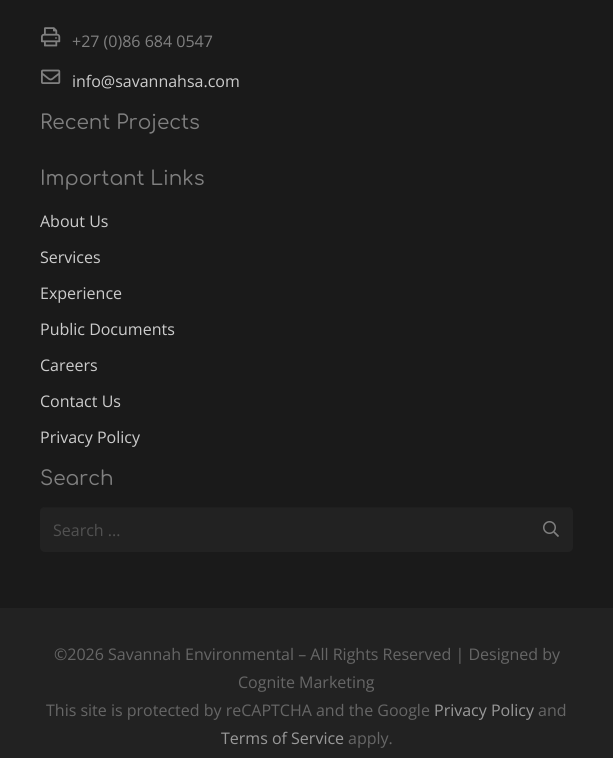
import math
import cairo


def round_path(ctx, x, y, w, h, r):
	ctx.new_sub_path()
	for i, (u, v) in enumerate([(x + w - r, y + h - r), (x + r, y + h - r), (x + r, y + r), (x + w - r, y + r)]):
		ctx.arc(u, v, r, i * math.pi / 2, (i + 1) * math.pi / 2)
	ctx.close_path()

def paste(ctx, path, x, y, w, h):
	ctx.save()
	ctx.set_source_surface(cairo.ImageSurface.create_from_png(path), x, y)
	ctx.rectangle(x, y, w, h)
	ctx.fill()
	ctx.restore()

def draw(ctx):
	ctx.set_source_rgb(0.102, 0.102, 0.102)
	ctx.paint()
	paste(ctx, 'media/1.png', 41, 27, 20, 20)
	ctx.select_font_face('Open Sans')
	ctx.set_font_size(16)
	ctx.set_source_rgb(0.502, 0.502, 0.502)
	ctx.move_to(72, 47)
	ctx.show_text('+27 (0)86 684 0547')
	paste(ctx, 'media/2.png', 41, 69, 20, 15)
	ctx.set_source_rgb(0.8, 0.8, 0.8)
	ctx.move_to(72, 87)
	ctx.show_text('info@savannahsa.com')
	ctx.select_font_face('Comfortaa')
	ctx.set_font_size(20)
	ctx.set_source_rgb(0.502, 0.502, 0.502)
	ctx.move_to(40, 129)
	ctx.show_text('Recent Projects')
	ctx.move_to(40, 185)
	ctx.show_text('Important Links')
	ctx.select_font_face('Open Sans')
	ctx.set_font_size(16)
	ctx.set_source_rgb(0.8, 0.8, 0.8)
	for x, y, s in [
		(40, 227, 'About Us'),
		(40, 263, 'Services'),
		(40, 299, 'Experience'),
		(40, 335, 'Public Documents'),
		(40, 371, 'Careers'),
		(40, 407, 'Contact Us'),
		(40, 443, 'Privacy Policy'),
	]:
		ctx.move_to(x, y)
		ctx.show_text(s)
	ctx.select_font_face('Comfortaa')
	ctx.set_font_size(20)
	ctx.set_source_rgb(0.502, 0.502, 0.502)
	ctx.move_to(40, 485)
	ctx.show_text('Search')
	ctx.set_source_rgb(0.133, 0.133, 0.133)
	round_path(ctx, 40, 507, 533, 45, 5)
	ctx.fill()
	ctx.set_source_rgb(0.122, 0.122, 0.122)
	ctx.new_path()
	ctx.move_to(45, 508)
	ctx.line_to(568, 508)
	ctx.curve_to(571, 508, 573, 510, 573, 513)
	ctx.curve_to(573, 510, 571, 507, 568, 507)
	ctx.line_to(45, 507)
	ctx.curve_to(42, 507, 40, 510, 40, 513)
	ctx.curve_to(40, 510, 42, 508, 45, 508)
	ctx.close_path()
	ctx.fill()
	ctx.select_font_face('Open Sans')
	ctx.set_font_size(16)
	ctx.set_source_rgb(0.318, 0.318, 0.318)
	ctx.move_to(53, 536)
	ctx.show_text('Search ...')
	paste(ctx, 'media/3.png', 543, 521, 16, 16)
	ctx.set_source_rgb(0.133, 0.133, 0.133)
	ctx.rectangle(0, 608, 613, 150)
	ctx.fill()
	ctx.set_source_rgb(0.4, 0.4, 0.4)
	for x, y, s in [
		(54, 660, '©2026 Savannah Environmental – All Rights Reserved | Designed by'),
		(238, 688, 'Cognite Marketing'),
		(46, 716, 'This site is protected by reCAPTCHA and the Google'),
	]:
		ctx.move_to(x, y)
		ctx.show_text(s)
	ctx.set_source_rgb(0.6, 0.6, 0.6)
	ctx.move_to(434, 716)
	ctx.show_text('Privacy Policy')
	ctx.set_source_rgb(0.4, 0.4, 0.4)
	ctx.move_to(538, 716)
	ctx.show_text('and')
	ctx.set_source_rgb(0.6, 0.6, 0.6)
	ctx.move_to(221, 744)
	ctx.show_text('Terms of Service')
	ctx.set_source_rgb(0.4, 0.4, 0.4)
	ctx.move_to(348, 744)
	ctx.show_text('apply.')


surface = cairo.ImageSurface(cairo.FORMAT_RGB24, 613, 758)
ctx = cairo.Context(surface)
options = cairo.FontOptions()
options.set_hint_metrics(cairo.HINT_METRICS_OFF)
options.set_hint_style(cairo.HINT_STYLE_NONE)
ctx.set_font_options(options)
ctx.set_miter_limit(4)
draw(ctx)
surface.write_to_png('image.png')
